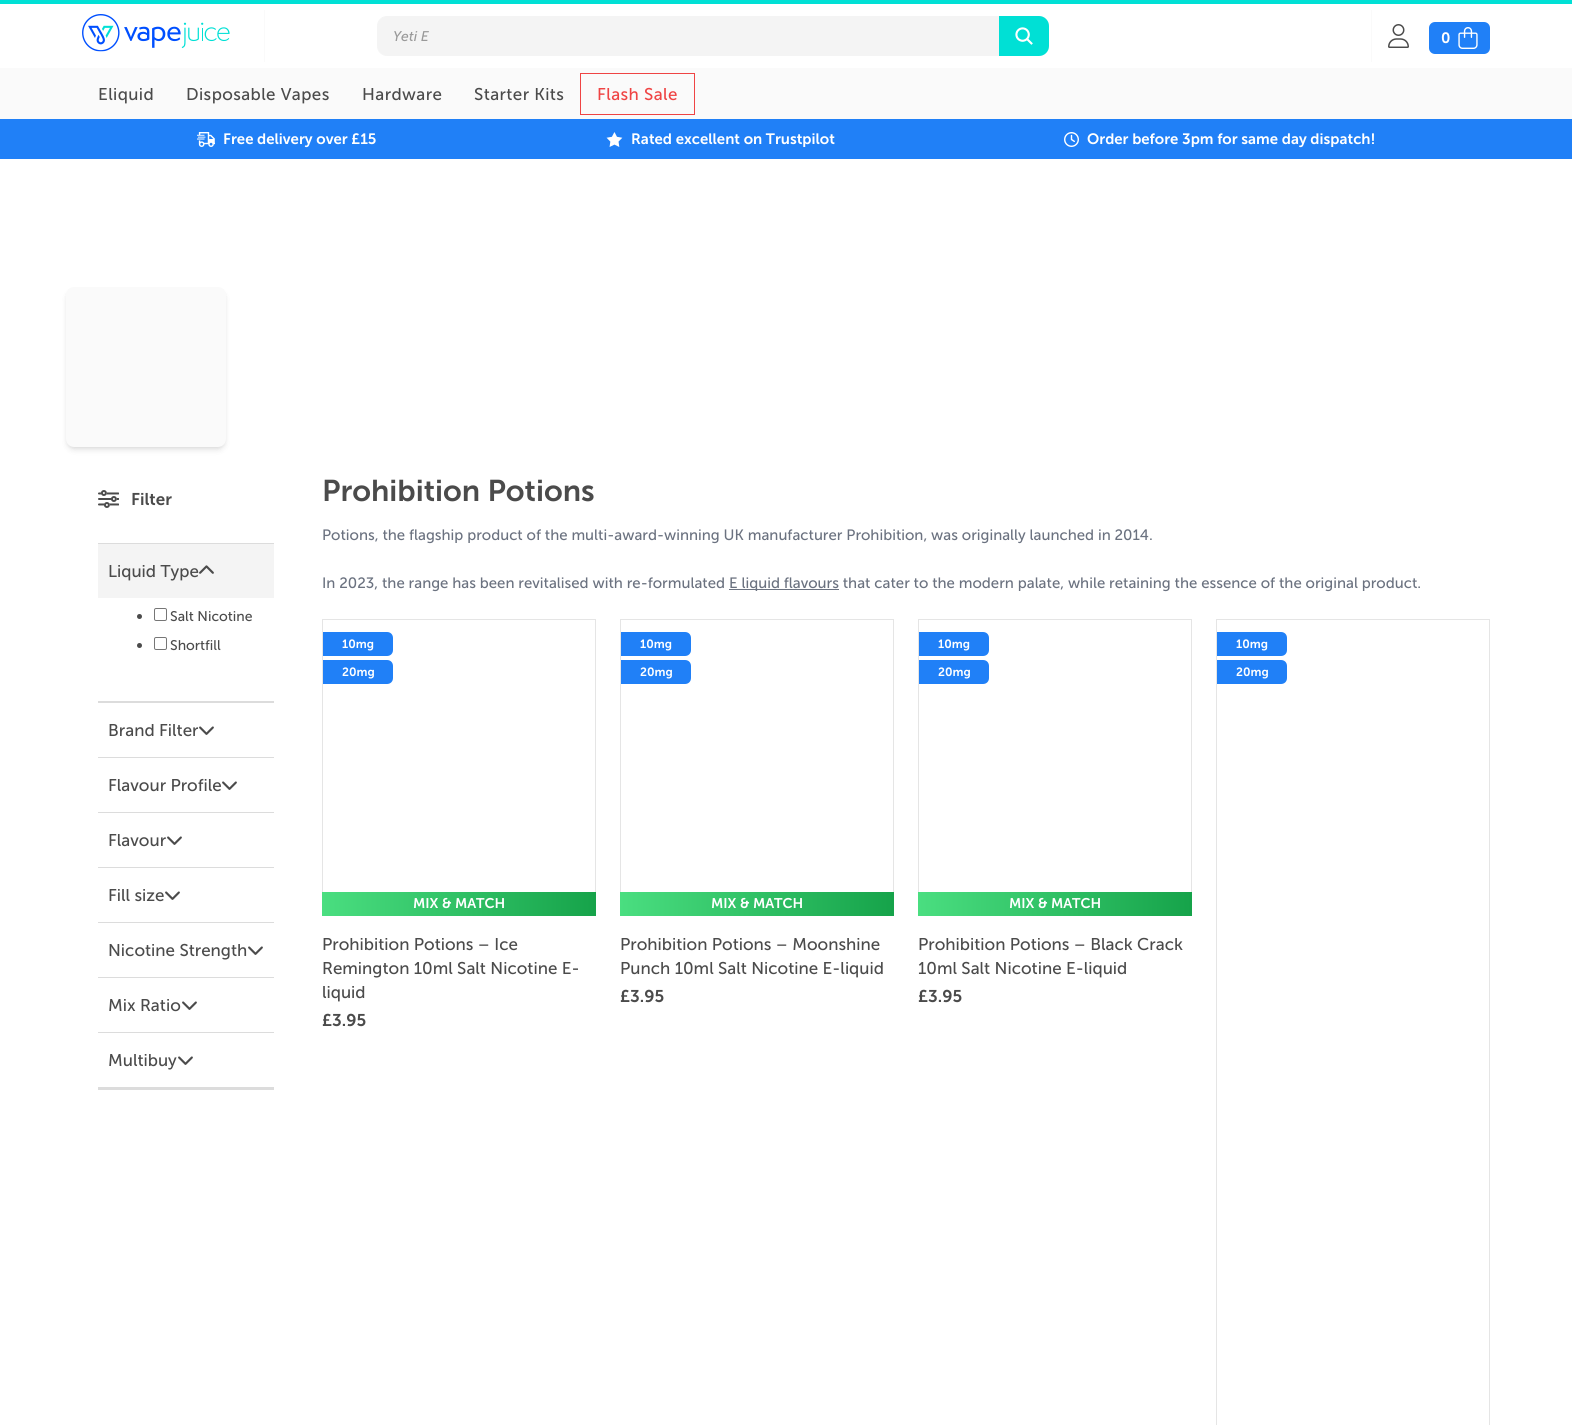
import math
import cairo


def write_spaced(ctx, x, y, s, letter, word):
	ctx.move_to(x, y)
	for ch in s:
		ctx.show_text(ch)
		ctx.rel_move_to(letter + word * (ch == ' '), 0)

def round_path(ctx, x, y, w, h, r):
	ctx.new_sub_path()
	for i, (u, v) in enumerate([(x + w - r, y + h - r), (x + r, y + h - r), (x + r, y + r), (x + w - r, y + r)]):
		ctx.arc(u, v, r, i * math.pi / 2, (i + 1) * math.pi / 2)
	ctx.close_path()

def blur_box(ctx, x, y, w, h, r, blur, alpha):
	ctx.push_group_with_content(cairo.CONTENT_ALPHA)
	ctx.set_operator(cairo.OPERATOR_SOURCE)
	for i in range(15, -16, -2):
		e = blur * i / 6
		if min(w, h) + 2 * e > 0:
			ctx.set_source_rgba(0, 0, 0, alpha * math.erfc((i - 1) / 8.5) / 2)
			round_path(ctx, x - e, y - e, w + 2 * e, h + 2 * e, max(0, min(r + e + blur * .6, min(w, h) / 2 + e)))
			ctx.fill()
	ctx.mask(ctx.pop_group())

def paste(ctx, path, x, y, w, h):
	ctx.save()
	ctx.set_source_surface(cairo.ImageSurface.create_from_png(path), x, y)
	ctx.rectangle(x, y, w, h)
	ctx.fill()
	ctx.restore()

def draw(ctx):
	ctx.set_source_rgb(1, 1, 1)
	ctx.paint()
	ctx.set_source_rgb(0, 0.878, 0.835)
	ctx.rectangle(0, 0, 1572, 4)
	ctx.fill()
	ctx.set_source_rgb(0.98, 0.98, 0.98)
	ctx.rectangle(0, 68, 1572, 51)
	ctx.rectangle(264, 10, 1, 52)
	ctx.fill()
	paste(ctx, 'media/1.png', 82, 14, 148, 38)
	ctx.set_source_rgb(0.957, 0.957, 0.957)
	round_path(ctx, 377.5, 16.5, 671, 39, 9.5)
	ctx.fill_preserve()
	ctx.set_line_width(1)
	ctx.stroke()
	ctx.select_font_face('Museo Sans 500', cairo.FONT_SLANT_ITALIC)
	ctx.set_font_size(14)
	ctx.set_source_rgb(0.6, 0.6, 0.6)
	ctx.move_to(393, 41)
	ctx.show_text('Yeti E')
	ctx.set_source_rgb(0, 0.878, 0.835)
	ctx.new_path()
	ctx.move_to(999, 16)
	ctx.line_to(1039, 16)
	ctx.curve_to(1044.5, 16, 1049, 20.5, 1049, 26)
	ctx.line_to(1049, 46)
	ctx.curve_to(1049, 51.5, 1044.5, 56, 1039, 56)
	ctx.line_to(999, 56)
	ctx.close_path()
	ctx.fill()
	paste(ctx, 'media/2.png', 1015, 27, 18, 18)
	ctx.set_source_rgb(0.98, 0.98, 0.98)
	ctx.rectangle(1371, 10, 1, 52)
	ctx.fill()
	paste(ctx, 'media/3.png', 1388, 24, 21, 24)
	ctx.set_source_rgb(0.125, 0.502, 0.965)
	round_path(ctx, 1429, 22, 61, 32, 6)
	ctx.fill()
	ctx.select_font_face('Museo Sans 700 SemiBold')
	ctx.set_font_size(15)
	ctx.set_source_rgb(1, 1, 1)
	ctx.move_to(1441, 43)
	ctx.show_text('0')
	paste(ctx, 'media/4.png', 1458, 27, 20, 22)
	ctx.select_font_face('Museo Sans 500')
	ctx.set_font_size(17)
	ctx.set_source_rgb(0.294, 0.294, 0.294)
	for x, y, s in [
		(98, 100, 'Eliquid'),
		(186, 100, 'Disposable Vapes'),
		(362, 100, 'Hardware'),
		(474, 100, 'Starter Kits'),
	]:
		write_spaced(ctx, x, y, s, 0.4, 0)
	ctx.rectangle(580.5, 73.5, 114, 41)
	ctx.set_source_rgb(0.937, 0.267, 0.267)
	ctx.stroke()
	write_spaced(ctx, 597, 100, 'Flash Sale', 0.4, 0)
	ctx.set_source_rgb(0.125, 0.502, 0.965)
	ctx.rectangle(0, 119, 1572, 40)
	ctx.fill()
	paste(ctx, 'media/5.png', 197, 132, 18, 15)
	ctx.select_font_face('Museo Sans 700 SemiBold')
	ctx.set_font_size(15)
	ctx.set_source_rgb(1, 1, 1)
	ctx.move_to(223, 144)
	ctx.show_text('Free delivery over £15')
	paste(ctx, 'media/6.png', 606, 132, 17, 15)
	ctx.move_to(631, 144)
	ctx.show_text('Rated excellent on Trustpilot')
	paste(ctx, 'media/7.png', 1064, 132, 15, 15)
	ctx.move_to(1087, 144)
	ctx.show_text('Order before 3pm for same day dispatch!')
	ctx.set_source_rgb(0, 0, 0)
	blur_box(ctx, 68, 291, 156, 156, 6, 2, 0.1)
	blur_box(ctx, 67, 292, 158, 158, 7, 3, 0.1)
	ctx.set_source_rgb(0.98, 0.98, 0.98)
	round_path(ctx, 66, 287, 160, 160, 8)
	ctx.fill()
	paste(ctx, 'media/8.png', 98, 490, 21, 18)
	ctx.set_font_size(17)
	ctx.set_source_rgb(0.294, 0.294, 0.294)
	ctx.move_to(131, 505)
	ctx.show_text('Filter')
	ctx.set_source_rgb(0.863, 0.863, 0.863)
	ctx.rectangle(98, 543, 176, 1)
	ctx.fill()
	ctx.set_source_rgb(0.957, 0.957, 0.957)
	ctx.rectangle(98, 544, 176, 54)
	ctx.fill()
	ctx.select_font_face('Museo Sans 500')
	ctx.set_source_rgb(0.294, 0.294, 0.294)
	ctx.move_to(108, 577)
	ctx.show_text('Liquid Type')
	paste(ctx, 'media/9.png', 199, 565, 15, 9)
	ctx.arc(139.5, 616.5, 2.5, 0, 2 * math.pi)
	ctx.fill()
	round_path(ctx, 154.5, 608.5, 12, 12, 1.5)
	ctx.set_source_rgb(0.463, 0.463, 0.463)
	ctx.stroke()
	ctx.set_font_size(14)
	ctx.set_source_rgb(0.294, 0.294, 0.294)
	ctx.move_to(170, 621)
	ctx.show_text('Salt Nicotine')
	ctx.new_path()
	ctx.arc(139.5, 645.5, 2.5, 0, 2 * math.pi)
	ctx.fill()
	round_path(ctx, 154.5, 637.5, 12, 12, 1.5)
	ctx.set_source_rgb(0.463, 0.463, 0.463)
	ctx.stroke()
	ctx.set_source_rgb(0.294, 0.294, 0.294)
	ctx.move_to(170, 650)
	ctx.show_text('Shortfill')
	ctx.set_source_rgb(0.863, 0.863, 0.863)
	ctx.rectangle(98, 701, 176, 2)
	ctx.fill()
	ctx.set_font_size(17)
	ctx.set_source_rgb(0.294, 0.294, 0.294)
	ctx.move_to(108, 736)
	ctx.show_text('Brand Filter')
	paste(ctx, 'media/10.png', 199, 726, 15, 9)
	ctx.set_source_rgb(0.863, 0.863, 0.863)
	ctx.rectangle(98, 757, 176, 1)
	ctx.fill()
	ctx.set_source_rgb(0.294, 0.294, 0.294)
	ctx.move_to(108, 791)
	ctx.show_text('Flavour Profile')
	paste(ctx, 'media/10.png', 222, 781, 15, 9)
	ctx.set_source_rgb(0.863, 0.863, 0.863)
	ctx.rectangle(98, 812, 176, 1)
	ctx.fill()
	ctx.set_source_rgb(0.294, 0.294, 0.294)
	ctx.move_to(108, 846)
	ctx.show_text('Flavour')
	paste(ctx, 'media/10.png', 167, 836, 15, 9)
	ctx.set_source_rgb(0.863, 0.863, 0.863)
	ctx.rectangle(98, 867, 176, 1)
	ctx.fill()
	ctx.set_source_rgb(0.294, 0.294, 0.294)
	ctx.move_to(108, 901)
	ctx.show_text('Fill size')
	paste(ctx, 'media/10.png', 165, 891, 15, 9)
	ctx.set_source_rgb(0.863, 0.863, 0.863)
	ctx.rectangle(98, 922, 176, 1)
	ctx.fill()
	ctx.set_source_rgb(0.294, 0.294, 0.294)
	ctx.move_to(108, 956)
	ctx.show_text('Nicotine Strength')
	paste(ctx, 'media/10.png', 248, 946, 15, 9)
	ctx.set_source_rgb(0.863, 0.863, 0.863)
	ctx.rectangle(98, 977, 176, 1)
	ctx.fill()
	ctx.set_source_rgb(0.294, 0.294, 0.294)
	ctx.move_to(108, 1011)
	ctx.show_text('Mix Ratio')
	paste(ctx, 'media/10.png', 182, 1001, 15, 9)
	ctx.set_source_rgb(0.863, 0.863, 0.863)
	ctx.rectangle(98, 1032, 176, 1)
	ctx.fill()
	ctx.set_source_rgb(0.294, 0.294, 0.294)
	ctx.move_to(108, 1066)
	ctx.show_text('Multibuy')
	paste(ctx, 'media/10.png', 178, 1056, 15, 9)
	ctx.set_source_rgb(0.863, 0.863, 0.863)
	ctx.rectangle(98, 1087, 176, 3)
	ctx.fill()
	ctx.select_font_face('Museo Sans 700 SemiBold')
	ctx.set_font_size(30)
	ctx.set_source_rgb(0.294, 0.294, 0.294)
	ctx.move_to(322, 501)
	ctx.show_text('Prohibition Potions')
	ctx.select_font_face('Museo Sans 500')
	ctx.set_font_size(15)
	ctx.set_source_rgb(0.42, 0.447, 0.502)
	ctx.move_to(322, 540)
	ctx.show_text('Potions, the flagship product of the multi-award-winning UK manufacturer Prohibition, was originally launched in 2014.')
	ctx.move_to(322, 588)
	ctx.show_text('In 2023, the range has been revitalised with re-formulated')
	ctx.rectangle(729, 589, 110, 1)
	ctx.fill()
	ctx.move_to(729, 588)
	ctx.show_text('E liquid flavours that cater to the modern palate, while retaining the essence of the original product.')
	ctx.rectangle(322.5, 619.5, 273, 273)
	ctx.set_source_rgb(0.898, 0.898, 0.898)
	ctx.stroke()
	ctx.set_source_rgb(0.125, 0.502, 0.965)
	ctx.new_path()
	ctx.move_to(323, 632)
	ctx.line_to(387, 632)
	ctx.curve_to(390.5, 632, 393, 634.5, 393, 638)
	ctx.line_to(393, 650)
	ctx.curve_to(393, 653.5, 390.5, 656, 387, 656)
	ctx.line_to(323, 656)
	ctx.close_path()
	ctx.fill()
	ctx.select_font_face('Museo Sans 700 SemiBold')
	ctx.set_font_size(12)
	ctx.set_source_rgb(1, 1, 1)
	ctx.move_to(342, 648)
	ctx.show_text('10mg')
	ctx.set_source_rgb(0.125, 0.502, 0.965)
	ctx.new_path()
	ctx.move_to(323, 660)
	ctx.line_to(387, 660)
	ctx.curve_to(390.5, 660, 393, 662.5, 393, 666)
	ctx.line_to(393, 678)
	ctx.curve_to(393, 681.5, 390.5, 684, 387, 684)
	ctx.line_to(323, 684)
	ctx.close_path()
	ctx.fill()
	ctx.set_source_rgb(1, 1, 1)
	ctx.move_to(342, 676)
	ctx.show_text('20mg')
	gradient = cairo.LinearGradient(322, 904, 596, 904)
	gradient.add_color_stop_rgba(0, 0.29, 0.871, 0.502, 1)
	gradient.add_color_stop_rgba(1, 0.086, 0.639, 0.29, 1)
	ctx.set_source(gradient)
	ctx.rectangle(322, 892, 274, 24)
	ctx.fill()
	ctx.set_font_size(14)
	ctx.set_source_rgb(1, 1, 1)
	ctx.move_to(413, 908)
	ctx.show_text('MIX & MATCH')
	ctx.select_font_face('Museo Sans 500')
	ctx.set_font_size(17)
	ctx.set_source_rgb(0.294, 0.294, 0.294)
	for x, y, s in [
		(322, 950, 'Prohibition Potions – Ice'),
		(322, 974, 'Remington 10ml Salt Nicotine E-'),
		(322, 998, 'liquid'),
	]:
		ctx.move_to(x, y)
		ctx.show_text(s)
	ctx.select_font_face('Museo Sans 700 SemiBold')
	ctx.move_to(322, 1026)
	ctx.show_text('£3.95')
	ctx.rectangle(620.5, 619.5, 273, 273)
	ctx.set_source_rgb(0.898, 0.898, 0.898)
	ctx.stroke()
	ctx.set_source_rgb(0.125, 0.502, 0.965)
	ctx.new_path()
	ctx.move_to(621, 632)
	ctx.line_to(685, 632)
	ctx.curve_to(688.5, 632, 691, 634.5, 691, 638)
	ctx.line_to(691, 650)
	ctx.curve_to(691, 653.5, 688.5, 656, 685, 656)
	ctx.line_to(621, 656)
	ctx.close_path()
	ctx.fill()
	ctx.set_font_size(12)
	ctx.set_source_rgb(1, 1, 1)
	ctx.move_to(640, 648)
	ctx.show_text('10mg')
	ctx.set_source_rgb(0.125, 0.502, 0.965)
	ctx.new_path()
	ctx.move_to(621, 660)
	ctx.line_to(685, 660)
	ctx.curve_to(688.5, 660, 691, 662.5, 691, 666)
	ctx.line_to(691, 678)
	ctx.curve_to(691, 681.5, 688.5, 684, 685, 684)
	ctx.line_to(621, 684)
	ctx.close_path()
	ctx.fill()
	ctx.set_source_rgb(1, 1, 1)
	ctx.move_to(640, 676)
	ctx.show_text('20mg')
	gradient = cairo.LinearGradient(620, 904, 894, 904)
	gradient.add_color_stop_rgba(0, 0.29, 0.871, 0.502, 1)
	gradient.add_color_stop_rgba(1, 0.086, 0.639, 0.29, 1)
	ctx.set_source(gradient)
	ctx.rectangle(620, 892, 274, 24)
	ctx.fill()
	ctx.set_font_size(14)
	ctx.set_source_rgb(1, 1, 1)
	ctx.move_to(711, 908)
	ctx.show_text('MIX & MATCH')
	ctx.select_font_face('Museo Sans 500')
	ctx.set_font_size(17)
	ctx.set_source_rgb(0.294, 0.294, 0.294)
	ctx.move_to(620, 950)
	ctx.show_text('Prohibition Potions – Moonshine')
	ctx.move_to(620, 974)
	ctx.show_text('Punch 10ml Salt Nicotine E-liquid')
	ctx.select_font_face('Museo Sans 700 SemiBold')
	ctx.move_to(620, 1002)
	ctx.show_text('£3.95')
	ctx.rectangle(918.5, 619.5, 273, 273)
	ctx.set_source_rgb(0.898, 0.898, 0.898)
	ctx.stroke()
	ctx.set_source_rgb(0.125, 0.502, 0.965)
	ctx.new_path()
	ctx.move_to(919, 632)
	ctx.line_to(983, 632)
	ctx.curve_to(986.5, 632, 989, 634.5, 989, 638)
	ctx.line_to(989, 650)
	ctx.curve_to(989, 653.5, 986.5, 656, 983, 656)
	ctx.line_to(919, 656)
	ctx.close_path()
	ctx.fill()
	ctx.set_font_size(12)
	ctx.set_source_rgb(1, 1, 1)
	ctx.move_to(938, 648)
	ctx.show_text('10mg')
	ctx.set_source_rgb(0.125, 0.502, 0.965)
	ctx.new_path()
	ctx.move_to(919, 660)
	ctx.line_to(983, 660)
	ctx.curve_to(986.5, 660, 989, 662.5, 989, 666)
	ctx.line_to(989, 678)
	ctx.curve_to(989, 681.5, 986.5, 684, 983, 684)
	ctx.line_to(919, 684)
	ctx.close_path()
	ctx.fill()
	ctx.set_source_rgb(1, 1, 1)
	ctx.move_to(938, 676)
	ctx.show_text('20mg')
	gradient = cairo.LinearGradient(918, 904, 1192, 904)
	gradient.add_color_stop_rgba(0, 0.29, 0.871, 0.502, 1)
	gradient.add_color_stop_rgba(1, 0.086, 0.639, 0.29, 1)
	ctx.set_source(gradient)
	ctx.rectangle(918, 892, 274, 24)
	ctx.fill()
	ctx.set_font_size(14)
	ctx.set_source_rgb(1, 1, 1)
	ctx.move_to(1009, 908)
	ctx.show_text('MIX & MATCH')
	ctx.select_font_face('Museo Sans 500')
	ctx.set_font_size(17)
	ctx.set_source_rgb(0.294, 0.294, 0.294)
	ctx.move_to(918, 950)
	ctx.show_text('Prohibition Potions – Black Crack')
	ctx.move_to(918, 974)
	ctx.show_text('10ml Salt Nicotine E-liquid')
	ctx.select_font_face('Museo Sans 700 SemiBold')
	ctx.move_to(918, 1002)
	ctx.show_text('£3.95')
	ctx.rectangle(1216.5, 619.5, 273, 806)
	ctx.set_source_rgb(0.898, 0.898, 0.898)
	ctx.stroke()
	ctx.set_source_rgb(0.125, 0.502, 0.965)
	ctx.new_path()
	ctx.move_to(1217, 632)
	ctx.line_to(1281, 632)
	ctx.curve_to(1284.5, 632, 1287, 634.5, 1287, 638)
	ctx.line_to(1287, 650)
	ctx.curve_to(1287, 653.5, 1284.5, 656, 1281, 656)
	ctx.line_to(1217, 656)
	ctx.close_path()
	ctx.fill()
	ctx.set_font_size(12)
	ctx.set_source_rgb(1, 1, 1)
	ctx.move_to(1236, 648)
	ctx.show_text('10mg')
	ctx.set_source_rgb(0.125, 0.502, 0.965)
	ctx.new_path()
	ctx.move_to(1217, 660)
	ctx.line_to(1281, 660)
	ctx.curve_to(1284.5, 660, 1287, 662.5, 1287, 666)
	ctx.line_to(1287, 678)
	ctx.curve_to(1287, 681.5, 1284.5, 684, 1281, 684)
	ctx.line_to(1217, 684)
	ctx.close_path()
	ctx.fill()
	ctx.set_source_rgb(1, 1, 1)
	ctx.move_to(1236, 676)
	ctx.show_text('20mg')


surface = cairo.ImageSurface(cairo.FORMAT_RGB24, 1572, 1425)
ctx = cairo.Context(surface)
options = cairo.FontOptions()
options.set_hint_metrics(cairo.HINT_METRICS_OFF)
options.set_hint_style(cairo.HINT_STYLE_NONE)
ctx.set_font_options(options)
ctx.set_miter_limit(4)
draw(ctx)
surface.write_to_png('image.png')
